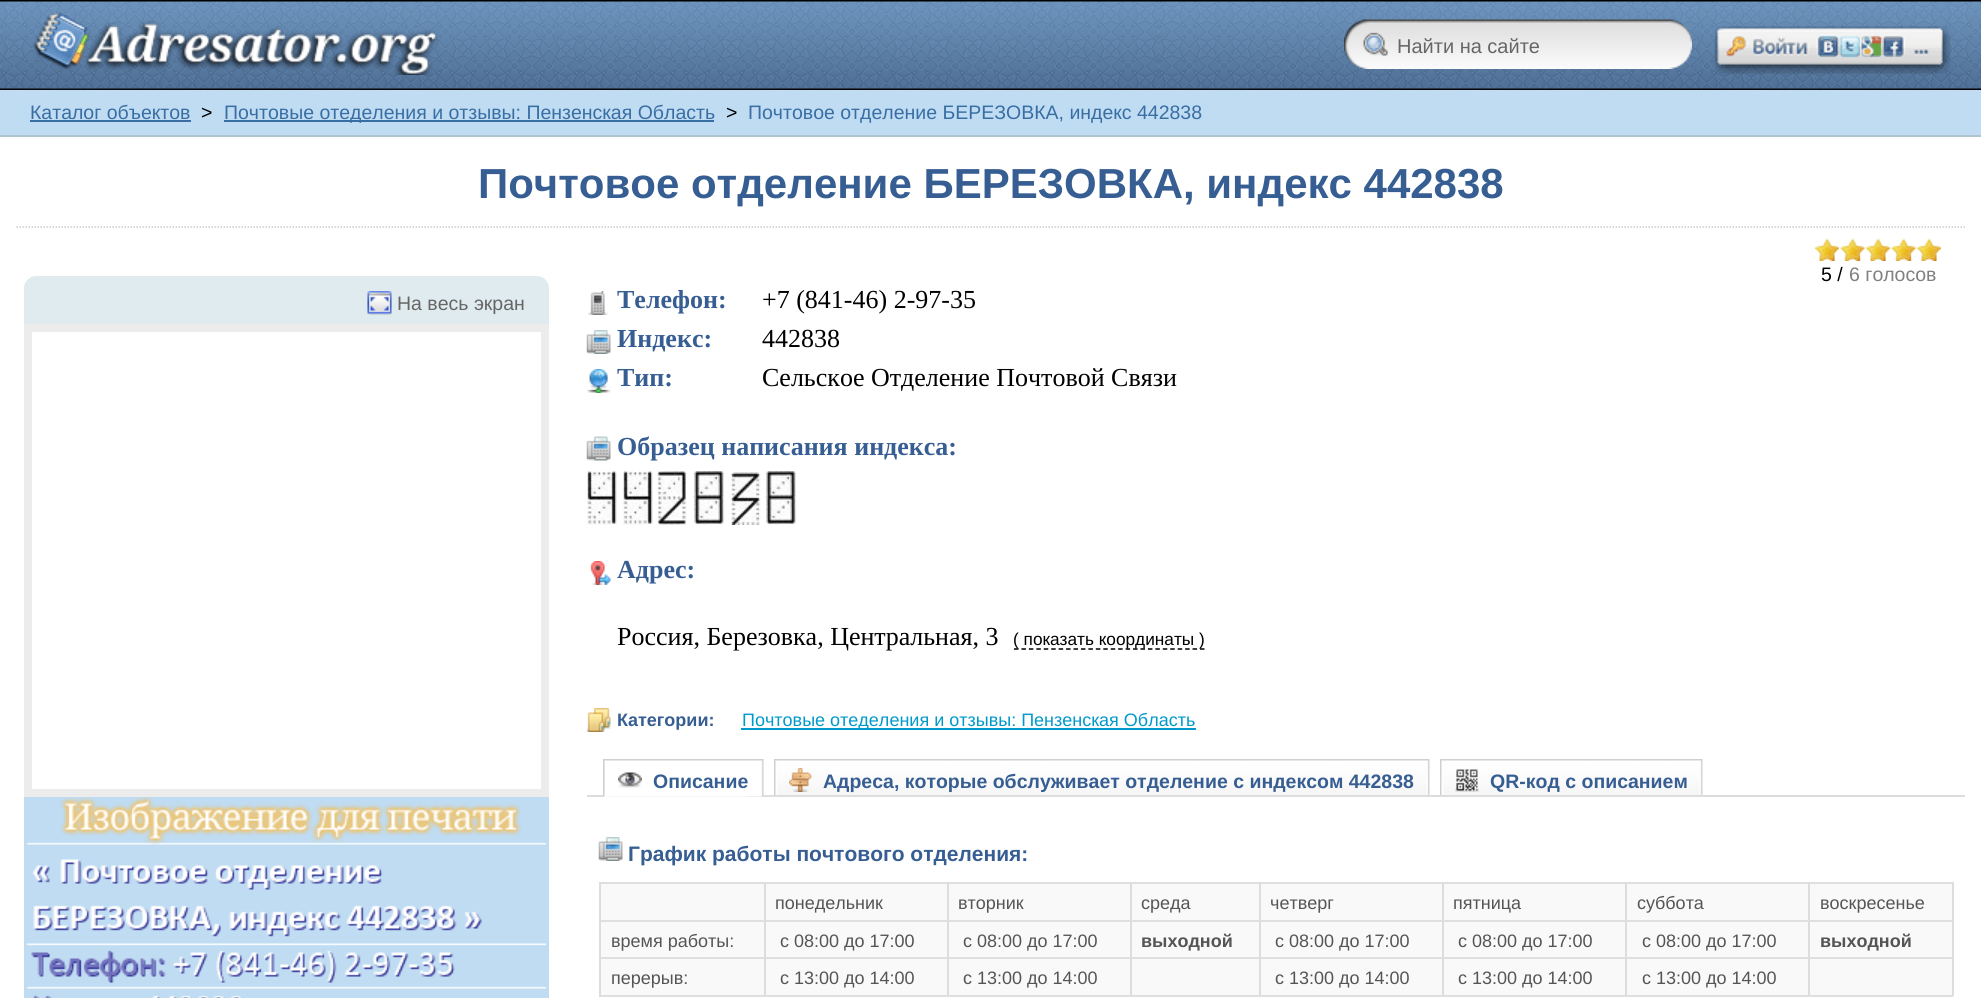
import math
import cairo


def round_path(ctx, x, y, w, h, r):
	ctx.new_sub_path()
	for i, (u, v) in enumerate([(x + w - r, y + h - r), (x + r, y + h - r), (x + r, y + r), (x + w - r, y + r)]):
		ctx.arc(u, v, r, i * math.pi / 2, (i + 1) * math.pi / 2)
	ctx.close_path()

def paste(ctx, path, x, y, w, h):
	ctx.save()
	ctx.set_source_surface(cairo.ImageSurface.create_from_png(path), x, y)
	ctx.rectangle(x, y, w, h)
	ctx.fill()
	ctx.restore()

def draw(ctx):
	ctx.set_source_rgb(1, 1, 1)
	ctx.paint()
	paste(ctx, 'media/1.png', 0, 0, 1981, 90)
	paste(ctx, 'media/2.png', 33, 12, 405, 63)
	paste(ctx, 'media/3.png', 1344, 19, 348, 50)
	ctx.select_font_face('Liberation Sans')
	ctx.set_font_size(20)
	ctx.set_source_rgb(0.4, 0.4, 0.4)
	ctx.move_to(1397, 53)
	ctx.show_text('Найти на сайте')
	paste(ctx, 'media/4.png', 1714, 26, 237, 48)
	ctx.set_source_rgb(0.749, 0.863, 0.949)
	ctx.rectangle(0, 90, 1981, 45)
	ctx.fill()
	ctx.set_source_rgb(0.686, 0.776, 0.808)
	ctx.rectangle(0, 135, 1981, 2)
	ctx.fill()
	ctx.set_font_size(19.5)
	ctx.set_source_rgb(0.224, 0.431, 0.643)
	ctx.move_to(30, 119)
	ctx.show_text('Каталог объектов')
	ctx.rectangle(30, 120, 161, 2)
	ctx.fill()
	ctx.set_source_rgb(0, 0, 0)
	ctx.move_to(201, 119)
	ctx.show_text('>')
	ctx.set_source_rgb(0.224, 0.431, 0.643)
	ctx.rectangle(224, 120, 490, 2)
	ctx.fill()
	ctx.move_to(224, 119)
	ctx.show_text('Почтовые отеделения и отзывы: Пензенская Область')
	ctx.set_source_rgb(0, 0, 0)
	ctx.move_to(726, 119)
	ctx.show_text('>')
	ctx.set_source_rgb(0.224, 0.431, 0.643)
	ctx.move_to(748, 119)
	ctx.show_text('Почтовое отделение БЕРЕЗОВКА, индекс 442838')
	ctx.select_font_face('Liberation Sans', cairo.FONT_SLANT_NORMAL, cairo.FONT_WEIGHT_BOLD)
	ctx.set_font_size(42)
	ctx.set_source_rgb(0.216, 0.369, 0.576)
	ctx.move_to(478, 198)
	ctx.show_text('Почтовое отделение БЕРЕЗОВКА, индекс 442838')
	ctx.new_path()
	ctx.move_to(16.5, 227)
	ctx.line_to(1965, 227)
	ctx.set_source_rgb(0.8, 0.8, 0.8)
	ctx.set_line_width(1.5)
	ctx.set_dash([1.5, 1.5])
	ctx.stroke()
	paste(ctx, 'media/5.png', 1815, 238, 24, 23)
	paste(ctx, 'media/6.png', 1840, 238, 25, 23)
	paste(ctx, 'media/5.png', 1866, 238, 24, 23)
	paste(ctx, 'media/7.png', 1891, 238, 25, 23)
	paste(ctx, 'media/5.png', 1917, 238, 24, 23)
	ctx.select_font_face('Liberation Sans')
	ctx.set_font_size(19.5)
	ctx.set_source_rgb(0, 0, 0)
	ctx.move_to(1821, 281)
	ctx.show_text('5 /')
	ctx.set_source_rgb(0.502, 0.502, 0.502)
	ctx.move_to(1849, 281)
	ctx.show_text('6 голосов')
	ctx.set_source_rgb(0.878, 0.918, 0.937)
	ctx.new_path()
	ctx.move_to(36, 276)
	ctx.line_to(537, 276)
	ctx.curve_to(543.5, 276, 549, 281.5, 549, 288)
	ctx.line_to(549, 324)
	ctx.line_to(24, 324)
	ctx.line_to(24, 288)
	ctx.curve_to(24, 281.5, 29.5, 276, 36, 276)
	ctx.close_path()
	ctx.fill()
	paste(ctx, 'media/8.png', 367, 291, 25, 24)
	ctx.set_source_rgb(0.4, 0.4, 0.4)
	ctx.move_to(397, 310)
	ctx.show_text('На весь экран')
	ctx.rectangle(28, 328, 517, 465)
	ctx.set_source_rgb(0.925, 0.925, 0.925)
	ctx.set_line_width(8)
	ctx.set_dash([])
	ctx.stroke()
	paste(ctx, 'media/9.png', 24, 797, 525, 201)
	paste(ctx, 'media/10.png', 588, 291, 20, 24)
	ctx.select_font_face('Liberation Serif', cairo.FONT_SLANT_NORMAL, cairo.FONT_WEIGHT_BOLD)
	ctx.set_font_size(26)
	ctx.set_source_rgb(0.216, 0.369, 0.576)
	ctx.move_to(617, 308)
	ctx.show_text('Телефон:')
	ctx.select_font_face('Liberation Serif')
	ctx.set_source_rgb(0, 0, 0)
	ctx.move_to(762, 308)
	ctx.show_text('+7 (841-46) 2-97-35')
	paste(ctx, 'media/11.png', 586, 330, 25, 24)
	ctx.select_font_face('Liberation Serif', cairo.FONT_SLANT_NORMAL, cairo.FONT_WEIGHT_BOLD)
	ctx.set_source_rgb(0.216, 0.369, 0.576)
	ctx.move_to(617, 347)
	ctx.show_text('Индекс:')
	ctx.select_font_face('Liberation Serif')
	ctx.set_source_rgb(0, 0, 0)
	ctx.move_to(762, 347)
	ctx.show_text('442838')
	paste(ctx, 'media/12.png', 587, 369, 24, 24)
	ctx.select_font_face('Liberation Serif', cairo.FONT_SLANT_NORMAL, cairo.FONT_WEIGHT_BOLD)
	ctx.set_source_rgb(0.216, 0.369, 0.576)
	ctx.move_to(617, 386)
	ctx.show_text('Тип:')
	ctx.select_font_face('Liberation Serif')
	ctx.set_source_rgb(0, 0, 0)
	ctx.move_to(762, 386)
	ctx.show_text('Сельское Отделение Почтовой Связи')
	paste(ctx, 'media/13.png', 586, 436, 25, 25)
	ctx.select_font_face('Liberation Serif', cairo.FONT_SLANT_NORMAL, cairo.FONT_WEIGHT_BOLD)
	ctx.set_source_rgb(0.216, 0.369, 0.576)
	ctx.move_to(617, 455)
	ctx.show_text('Образец написания индекса:')
	paste(ctx, 'media/14.png', 587, 471, 30, 54)
	paste(ctx, 'media/15.png', 622, 471, 31, 54)
	paste(ctx, 'media/16.png', 657, 471, 30, 54)
	paste(ctx, 'media/17.png', 693, 471, 32, 54)
	paste(ctx, 'media/18.png', 730, 472, 31, 53)
	paste(ctx, 'media/17.png', 765, 471, 32, 54)
	paste(ctx, 'media/19.png', 590, 561, 21, 24)
	ctx.move_to(617, 578)
	ctx.show_text('Адрес:')
	ctx.select_font_face('Liberation Serif')
	ctx.set_source_rgb(0, 0, 0)
	ctx.move_to(617, 645)
	ctx.show_text('Россия, Березовка, Центральная, 3')
	ctx.new_path()
	ctx.move_to(1014, 649)
	ctx.line_to(1204.5, 649)
	ctx.set_line_width(1.5)
	ctx.set_dash([4.5, 2.94])
	ctx.stroke()
	ctx.select_font_face('Liberation Sans')
	ctx.set_font_size(17.25)
	ctx.move_to(1013, 645)
	ctx.show_text('( показать координаты )')
	paste(ctx, 'media/20.png', 586, 708, 25, 24)
	ctx.select_font_face('Liberation Sans', cairo.FONT_SLANT_NORMAL, cairo.FONT_WEIGHT_BOLD)
	ctx.set_font_size(18)
	ctx.set_source_rgb(0.216, 0.369, 0.576)
	ctx.move_to(617, 726)
	ctx.show_text('Категории:')
	ctx.set_source_rgb(0, 0.6, 0.8)
	ctx.rectangle(741, 728, 455, 2)
	ctx.fill()
	ctx.select_font_face('Liberation Sans')
	ctx.move_to(742, 726)
	ctx.show_text('Почтовые отеделения и отзывы: Пензенская Область')
	ctx.set_source_rgb(0.867, 0.867, 0.867)
	ctx.rectangle(587, 795, 1378, 2)
	ctx.fill()
	paste(ctx, 'media/21.png', 603, 759, 161, 38)
	paste(ctx, 'media/22.png', 603, 759, 146, 38)
	paste(ctx, 'media/23.png', 618, 772, 24, 16)
	ctx.select_font_face('Liberation Sans', cairo.FONT_SLANT_NORMAL, cairo.FONT_WEIGHT_BOLD)
	ctx.set_font_size(19.5)
	ctx.set_source_rgb(0.216, 0.369, 0.576)
	ctx.move_to(653, 788)
	ctx.show_text('Описание')
	paste(ctx, 'media/24.png', 1370, 759, 60, 36)
	paste(ctx, 'media/25.png', 774, 759, 596, 36)
	paste(ctx, 'media/26.png', 789, 768, 23, 24)
	ctx.move_to(823, 788)
	ctx.show_text('Адреса, которые обслуживает отделение с индексом 442838')
	paste(ctx, 'media/24.png', 1643, 759, 60, 36)
	paste(ctx, 'media/27.png', 1440, 759, 203, 36)
	paste(ctx, 'media/28.png', 1455, 769, 24, 23)
	ctx.move_to(1490, 788)
	ctx.show_text('QR-код с описанием')
	paste(ctx, 'media/11.png', 598, 837, 25, 24)
	ctx.set_font_size(21)
	ctx.move_to(628, 861)
	ctx.show_text('График работы почтового отделения:')
	ctx.set_source_rgb(0.976, 0.976, 0.976)
	round_path(ctx, 599, 882, 1354, 114, 5)
	ctx.fill()
	ctx.set_source_rgb(0.875, 0.875, 0.875)
	ctx.rectangle(599, 882, 1354, 2)
	ctx.fill()
	ctx.set_source_rgb(0.867, 0.867, 0.867)
	ctx.rectangle(1952, 882, 2, 114)
	ctx.fill()
	ctx.set_source_rgb(0.875, 0.875, 0.875)
	ctx.rectangle(1808, 995, 145, 2)
	ctx.fill()
	ctx.set_source_rgb(0.867, 0.867, 0.867)
	ctx.rectangle(1808, 957, 2, 39)
	ctx.fill()
	ctx.set_source_rgb(0.875, 0.875, 0.875)
	ctx.rectangle(1808, 957, 145, 2)
	ctx.fill()
	ctx.set_source_rgb(0.867, 0.867, 0.867)
	ctx.rectangle(1808, 920, 2, 39)
	ctx.fill()
	ctx.set_source_rgb(0.875, 0.875, 0.875)
	ctx.rectangle(1808, 920, 145, 2)
	ctx.fill()
	ctx.set_source_rgb(0.867, 0.867, 0.867)
	ctx.rectangle(1808, 882, 2, 39)
	ctx.fill()
	ctx.set_source_rgb(0.875, 0.875, 0.875)
	ctx.rectangle(1625, 995, 184, 2)
	ctx.fill()
	ctx.set_source_rgb(0.867, 0.867, 0.867)
	ctx.rectangle(1625, 957, 2, 39)
	ctx.fill()
	ctx.set_source_rgb(0.875, 0.875, 0.875)
	ctx.rectangle(1625, 957, 184, 2)
	ctx.fill()
	ctx.set_source_rgb(0.867, 0.867, 0.867)
	ctx.rectangle(1625, 920, 2, 39)
	ctx.fill()
	ctx.set_source_rgb(0.875, 0.875, 0.875)
	ctx.rectangle(1625, 920, 184, 2)
	ctx.fill()
	ctx.set_source_rgb(0.867, 0.867, 0.867)
	ctx.rectangle(1625, 882, 2, 39)
	ctx.fill()
	ctx.set_source_rgb(0.875, 0.875, 0.875)
	ctx.rectangle(1442, 995, 184, 2)
	ctx.fill()
	ctx.set_source_rgb(0.867, 0.867, 0.867)
	ctx.rectangle(1442, 957, 2, 39)
	ctx.fill()
	ctx.set_source_rgb(0.875, 0.875, 0.875)
	ctx.rectangle(1442, 957, 184, 2)
	ctx.fill()
	ctx.set_source_rgb(0.867, 0.867, 0.867)
	ctx.rectangle(1442, 920, 2, 39)
	ctx.fill()
	ctx.set_source_rgb(0.875, 0.875, 0.875)
	ctx.rectangle(1442, 920, 184, 2)
	ctx.fill()
	ctx.set_source_rgb(0.867, 0.867, 0.867)
	ctx.rectangle(1442, 882, 2, 39)
	ctx.fill()
	ctx.set_source_rgb(0.875, 0.875, 0.875)
	ctx.rectangle(1259, 995, 184, 2)
	ctx.fill()
	ctx.set_source_rgb(0.867, 0.867, 0.867)
	ctx.rectangle(1259, 957, 2, 39)
	ctx.fill()
	ctx.set_source_rgb(0.875, 0.875, 0.875)
	ctx.rectangle(1259, 957, 184, 2)
	ctx.fill()
	ctx.set_source_rgb(0.867, 0.867, 0.867)
	ctx.rectangle(1259, 920, 2, 39)
	ctx.fill()
	ctx.set_source_rgb(0.875, 0.875, 0.875)
	ctx.rectangle(1259, 920, 184, 2)
	ctx.fill()
	ctx.set_source_rgb(0.867, 0.867, 0.867)
	ctx.rectangle(1259, 882, 2, 39)
	ctx.fill()
	ctx.set_source_rgb(0.875, 0.875, 0.875)
	ctx.rectangle(1130, 995, 130, 2)
	ctx.fill()
	ctx.set_source_rgb(0.867, 0.867, 0.867)
	ctx.rectangle(1130, 957, 2, 39)
	ctx.fill()
	ctx.set_source_rgb(0.875, 0.875, 0.875)
	ctx.rectangle(1130, 957, 130, 2)
	ctx.fill()
	ctx.set_source_rgb(0.867, 0.867, 0.867)
	ctx.rectangle(1130, 920, 2, 39)
	ctx.fill()
	ctx.set_source_rgb(0.875, 0.875, 0.875)
	ctx.rectangle(1130, 920, 130, 2)
	ctx.fill()
	ctx.set_source_rgb(0.867, 0.867, 0.867)
	ctx.rectangle(1130, 882, 2, 39)
	ctx.fill()
	ctx.set_source_rgb(0.875, 0.875, 0.875)
	ctx.rectangle(947, 995, 184, 2)
	ctx.fill()
	ctx.set_source_rgb(0.867, 0.867, 0.867)
	ctx.rectangle(947, 957, 2, 39)
	ctx.fill()
	ctx.set_source_rgb(0.875, 0.875, 0.875)
	ctx.rectangle(947, 957, 184, 2)
	ctx.fill()
	ctx.set_source_rgb(0.867, 0.867, 0.867)
	ctx.rectangle(947, 920, 2, 39)
	ctx.fill()
	ctx.set_source_rgb(0.875, 0.875, 0.875)
	ctx.rectangle(947, 920, 184, 2)
	ctx.fill()
	ctx.set_source_rgb(0.867, 0.867, 0.867)
	ctx.rectangle(947, 882, 2, 39)
	ctx.fill()
	ctx.set_source_rgb(0.875, 0.875, 0.875)
	ctx.rectangle(764, 995, 184, 2)
	ctx.fill()
	ctx.set_source_rgb(0.867, 0.867, 0.867)
	ctx.rectangle(764, 957, 2, 39)
	ctx.fill()
	ctx.set_source_rgb(0.875, 0.875, 0.875)
	ctx.rectangle(764, 957, 184, 2)
	ctx.fill()
	ctx.set_source_rgb(0.867, 0.867, 0.867)
	ctx.rectangle(764, 920, 2, 39)
	ctx.fill()
	ctx.set_source_rgb(0.875, 0.875, 0.875)
	ctx.rectangle(764, 920, 184, 2)
	ctx.fill()
	ctx.set_source_rgb(0.867, 0.867, 0.867)
	ctx.rectangle(764, 882, 2, 39)
	ctx.fill()
	ctx.set_source_rgb(0.875, 0.875, 0.875)
	ctx.rectangle(599, 995, 166, 2)
	ctx.fill()
	ctx.set_source_rgb(0.867, 0.867, 0.867)
	ctx.rectangle(599, 957, 2, 39)
	ctx.fill()
	ctx.set_source_rgb(0.875, 0.875, 0.875)
	ctx.rectangle(599, 957, 166, 2)
	ctx.fill()
	ctx.set_source_rgb(0.867, 0.867, 0.867)
	ctx.rectangle(599, 920, 2, 39)
	ctx.fill()
	ctx.set_source_rgb(0.875, 0.875, 0.875)
	ctx.rectangle(599, 920, 166, 2)
	ctx.fill()
	ctx.set_source_rgb(0.867, 0.867, 0.867)
	ctx.rectangle(599, 882, 2, 39)
	ctx.fill()
	ctx.select_font_face('Liberation Sans')
	ctx.set_font_size(18)
	ctx.set_source_rgb(0.333, 0.333, 0.333)
	for x, y, s in [
		(775, 909, 'понедельник'),
		(958, 909, 'вторник'),
		(1141, 909, 'среда'),
		(1270, 909, 'четверг'),
		(1453, 909, 'пятница'),
		(1637, 909, 'суббота'),
		(1820, 909, 'воскресенье'),
		(611, 947, 'время работы:'),
		(780, 947, 'с 08:00 до 17:00'),
		(963, 947, 'с 08:00 до 17:00'),
	]:
		ctx.move_to(x, y)
		ctx.show_text(s)
	ctx.select_font_face('Liberation Sans', cairo.FONT_SLANT_NORMAL, cairo.FONT_WEIGHT_BOLD)
	ctx.move_to(1141, 947)
	ctx.show_text('выходной')
	ctx.select_font_face('Liberation Sans')
	for x, y, s in [
		(1275, 947, 'с 08:00 до 17:00'),
		(1458, 947, 'с 08:00 до 17:00'),
		(1642, 947, 'с 08:00 до 17:00'),
	]:
		ctx.move_to(x, y)
		ctx.show_text(s)
	ctx.select_font_face('Liberation Sans', cairo.FONT_SLANT_NORMAL, cairo.FONT_WEIGHT_BOLD)
	ctx.move_to(1820, 947)
	ctx.show_text('выходной')
	ctx.select_font_face('Liberation Sans')
	for x, y, s in [
		(611, 984, 'перерыв:'),
		(780, 984, 'с 13:00 до 14:00'),
		(963, 984, 'с 13:00 до 14:00'),
		(1275, 984, 'с 13:00 до 14:00'),
		(1458, 984, 'с 13:00 до 14:00'),
		(1642, 984, 'с 13:00 до 14:00'),
	]:
		ctx.move_to(x, y)
		ctx.show_text(s)


surface = cairo.ImageSurface(cairo.FORMAT_RGB24, 1981, 998)
ctx = cairo.Context(surface)
options = cairo.FontOptions()
options.set_hint_metrics(cairo.HINT_METRICS_OFF)
options.set_hint_style(cairo.HINT_STYLE_NONE)
ctx.set_font_options(options)
ctx.set_miter_limit(4)
draw(ctx)
surface.write_to_png('image.png')
